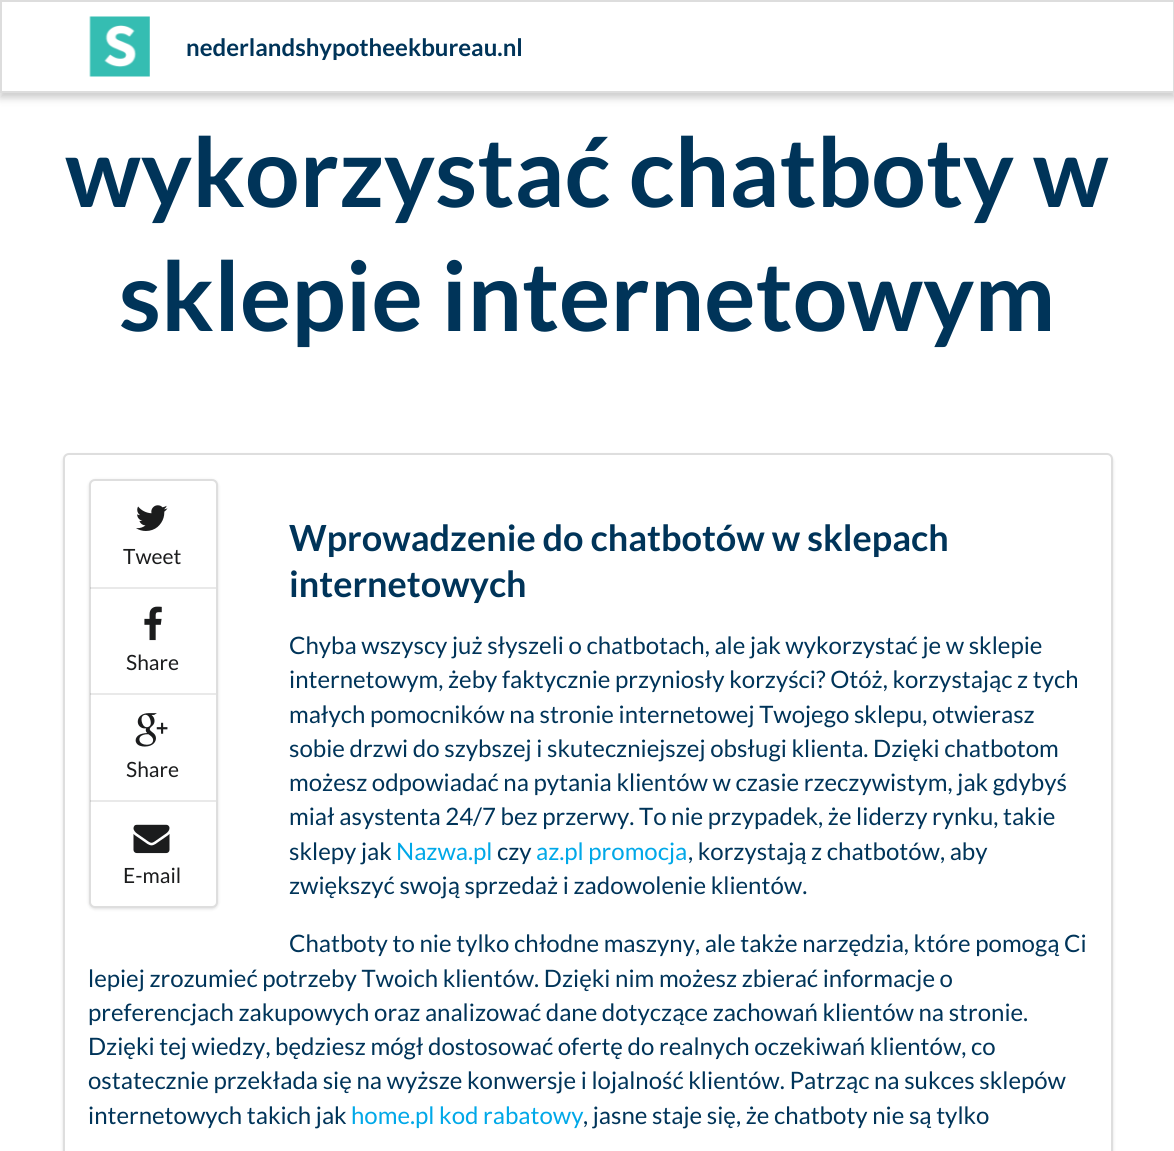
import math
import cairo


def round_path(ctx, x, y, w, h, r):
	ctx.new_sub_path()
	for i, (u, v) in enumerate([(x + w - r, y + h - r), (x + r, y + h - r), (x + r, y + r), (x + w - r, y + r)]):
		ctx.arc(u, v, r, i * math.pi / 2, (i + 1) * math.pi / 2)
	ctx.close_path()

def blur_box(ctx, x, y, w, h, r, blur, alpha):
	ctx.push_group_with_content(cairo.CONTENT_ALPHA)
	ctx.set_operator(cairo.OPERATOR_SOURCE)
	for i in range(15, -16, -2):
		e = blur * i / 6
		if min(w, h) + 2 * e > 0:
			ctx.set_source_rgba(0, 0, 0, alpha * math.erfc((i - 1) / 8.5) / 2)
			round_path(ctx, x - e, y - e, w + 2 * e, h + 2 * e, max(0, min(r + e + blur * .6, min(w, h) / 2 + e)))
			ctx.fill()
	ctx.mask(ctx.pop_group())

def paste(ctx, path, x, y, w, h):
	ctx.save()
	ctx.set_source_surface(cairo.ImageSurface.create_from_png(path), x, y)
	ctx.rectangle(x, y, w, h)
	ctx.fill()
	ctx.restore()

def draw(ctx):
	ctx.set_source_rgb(1, 1, 1)
	ctx.paint()
	ctx.set_source_rgb(0, 0, 0)
	blur_box(ctx, 0, 5, 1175, 93, 0, 4, 0.2)
	ctx.set_source_rgb(1, 1, 1)
	ctx.rectangle(1, 1, 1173, 91)
	ctx.fill_preserve()
	ctx.set_source_rgb(0.867, 0.867, 0.867)
	ctx.stroke()
	paste(ctx, 'media/1.png', 89, 16, 61, 61)
	ctx.select_font_face('Lato', cairo.FONT_SLANT_NORMAL, cairo.FONT_WEIGHT_BOLD)
	ctx.set_font_size(24)
	ctx.set_source_rgb(0, 0.204, 0.349)
	ctx.move_to(186, 56)
	ctx.show_text('nederlandshypotheekbureau.nl')
	ctx.set_font_size(96)
	ctx.move_to(65, 207)
	ctx.show_text('wykorzystać chatboty w')
	ctx.move_to(119, 331)
	ctx.show_text('sklepie internetowym')
	ctx.set_source_rgb(0.133, 0.141, 0.149)
	blur_box(ctx, 63, 455, 1050, 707, 6, 1.5, 0.15)
	ctx.set_source_rgb(1, 1, 1)
	round_path(ctx, 64, 454, 1048, 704, 5)
	ctx.fill_preserve()
	ctx.set_source_rgb(0.871, 0.871, 0.871)
	ctx.stroke()
	ctx.set_source_rgb(0.133, 0.141, 0.149)
	blur_box(ctx, 89, 480, 129, 429, 6, 1.5, 0.15)
	ctx.set_source_rgb(1, 1, 1)
	round_path(ctx, 89, 479, 129, 429, 6)
	ctx.fill()
	round_path(ctx, 90, 480, 127, 427, 5)
	ctx.set_source_rgba(0.133, 0.141, 0.149, 0.15)
	ctx.stroke()
	paste(ctx, 'media/2.png', 136, 505, 32, 26)
	ctx.select_font_face('Lato')
	ctx.set_font_size(21)
	ctx.set_source_rgb(0.106, 0.11, 0.114)
	ctx.move_to(123, 564)
	ctx.show_text('Tweet')
	ctx.set_source_rgba(0.133, 0.141, 0.149, 0.1)
	ctx.rectangle(90, 587, 126, 2)
	ctx.fill()
	paste(ctx, 'media/3.png', 144, 606, 18, 35)
	ctx.set_source_rgb(0.106, 0.11, 0.114)
	ctx.move_to(126, 670)
	ctx.show_text('Share')
	ctx.set_source_rgba(0.133, 0.141, 0.149, 0.1)
	ctx.rectangle(90, 693, 126, 2)
	ctx.fill()
	paste(ctx, 'media/4.png', 135, 713, 33, 34)
	ctx.set_source_rgb(0.106, 0.11, 0.114)
	ctx.move_to(126, 777)
	ctx.show_text('Share')
	ctx.set_source_rgba(0.133, 0.141, 0.149, 0.1)
	ctx.rectangle(90, 800, 126, 2)
	ctx.fill()
	paste(ctx, 'media/5.png', 133, 824, 37, 30)
	ctx.set_source_rgb(0.106, 0.11, 0.114)
	ctx.move_to(123, 883)
	ctx.show_text('E-mail')
	ctx.select_font_face('Lato', cairo.FONT_SLANT_NORMAL, cairo.FONT_WEIGHT_BOLD)
	ctx.set_font_size(36)
	ctx.set_source_rgb(0, 0.204, 0.349)
	ctx.move_to(289, 551)
	ctx.show_text('Wprowadzenie do chatbotów w sklepach')
	ctx.move_to(289, 597)
	ctx.show_text('internetowych')
	ctx.select_font_face('Lato')
	ctx.set_font_size(24)
	for x, y, s in [
		(289, 654, 'Chyba wszyscy już słyszeli o chatbotach, ale jak wykorzystać je w sklepie'),
		(289, 688, 'internetowym, żeby faktycznie przyniosły korzyści? Otóż, korzystając z tych'),
		(289, 723, 'małych pomocników na stronie internetowej Twojego sklepu, otwierasz'),
		(289, 757, 'sobie drzwi do szybszej i skuteczniejszej obsługi klienta. Dzięki chatbotom'),
		(289, 791, 'możesz odpowiadać na pytania klientów w czasie rzeczywistym, jak gdybyś'),
		(289, 825, 'miał asystenta 24/7 bez przerwy. To nie przypadek, że liderzy rynku, takie'),
		(289, 860, 'sklepy jak'),
	]:
		ctx.move_to(x, y)
		ctx.show_text(s)
	ctx.set_source_rgb(0, 0.659, 0.91)
	ctx.move_to(396, 860)
	ctx.show_text('Nazwa.pl')
	ctx.set_source_rgb(0, 0.204, 0.349)
	ctx.move_to(497, 860)
	ctx.show_text('czy')
	ctx.set_source_rgb(0, 0.659, 0.91)
	ctx.move_to(536, 860)
	ctx.show_text('az.pl promocja')
	ctx.set_source_rgb(0, 0.204, 0.349)
	for x, y, s in [
		(688, 860, ', korzystają z chatbotów, aby'),
		(289, 894, 'zwiększyć swoją sprzedaż i zadowolenie klientów.'),
		(289, 952, 'Chatboty to nie tylko chłodne maszyny, ale także narzędzia, które pomogą Ci'),
		(88, 987, 'lepiej zrozumieć potrzeby Twoich klientów. Dzięki nim możesz zbierać informacje o'),
		(88, 1021, 'preferencjach zakupowych oraz analizować dane dotyczące zachowań klientów na stronie.'),
		(88, 1055, 'Dzięki tej wiedzy, będziesz mógł dostosować ofertę do realnych oczekiwań klientów, co'),
		(88, 1089, 'ostatecznie przekłada się na wyższe konwersje i lojalność klientów. Patrząc na sukces sklepów'),
		(88, 1124, 'internetowych takich jak'),
	]:
		ctx.move_to(x, y)
		ctx.show_text(s)
	ctx.set_source_rgb(0, 0.659, 0.91)
	ctx.move_to(351, 1124)
	ctx.show_text('home.pl kod rabatowy')
	ctx.set_source_rgb(0, 0.204, 0.349)
	ctx.move_to(583, 1124)
	ctx.show_text(', jasne staje się, że chatboty nie są tylko')


surface = cairo.ImageSurface(cairo.FORMAT_RGB24, 1174, 1151)
ctx = cairo.Context(surface)
options = cairo.FontOptions()
options.set_hint_metrics(cairo.HINT_METRICS_OFF)
options.set_hint_style(cairo.HINT_STYLE_NONE)
ctx.set_font_options(options)
ctx.set_miter_limit(4)
draw(ctx)
surface.write_to_png('image.png')
